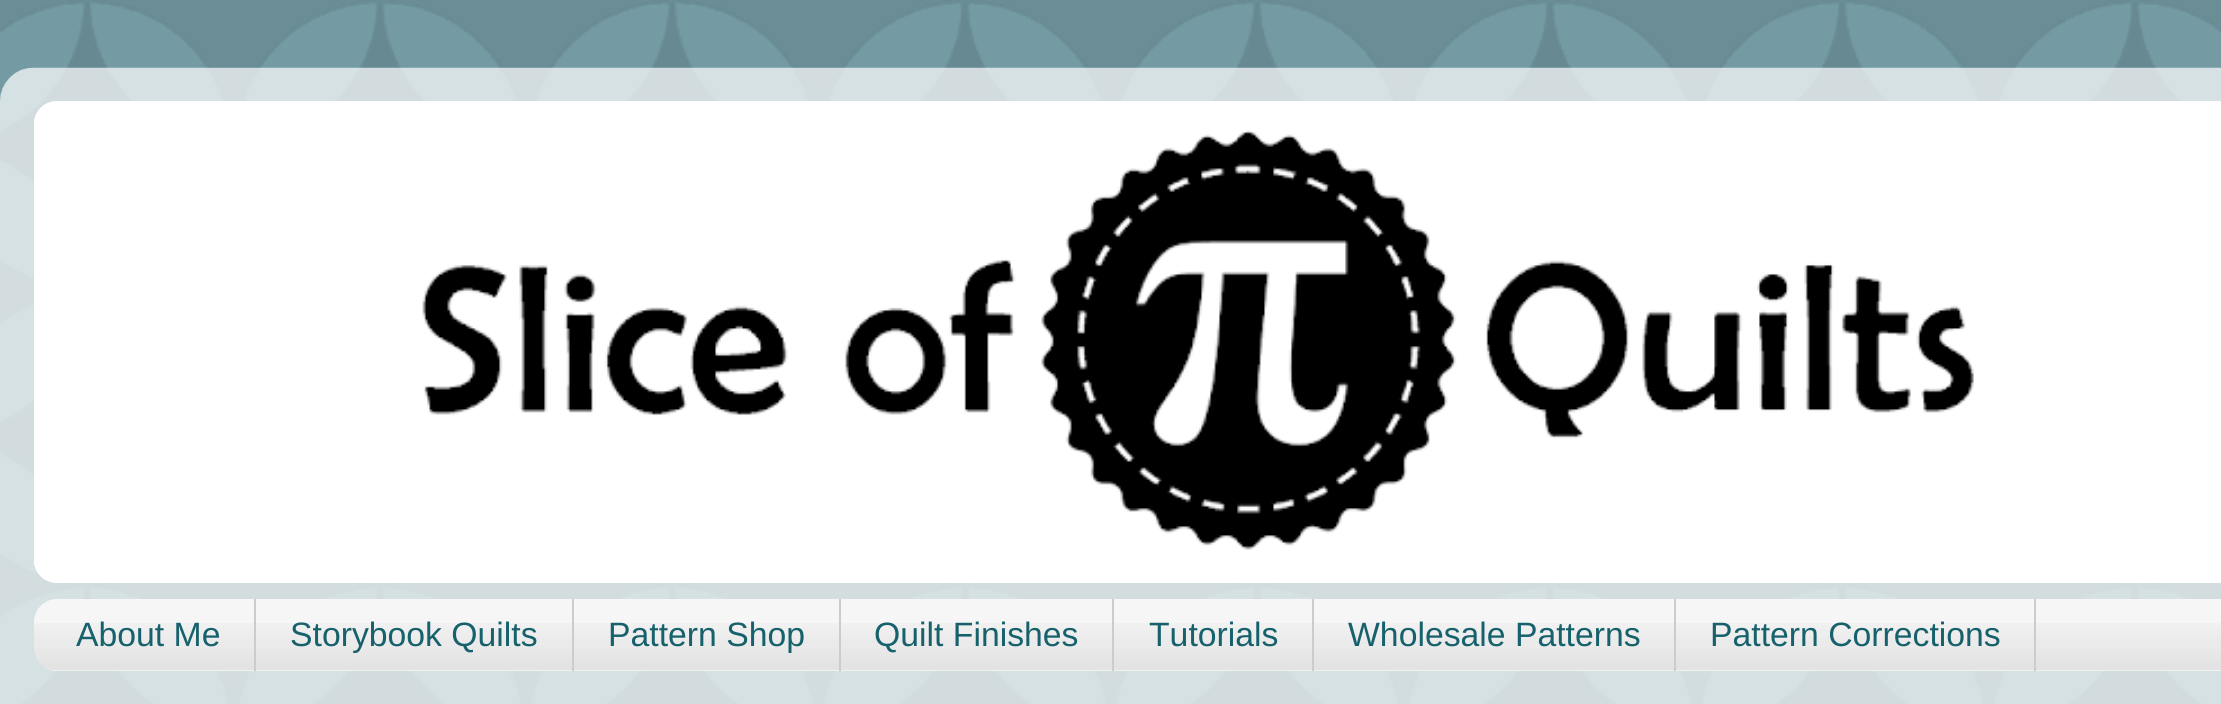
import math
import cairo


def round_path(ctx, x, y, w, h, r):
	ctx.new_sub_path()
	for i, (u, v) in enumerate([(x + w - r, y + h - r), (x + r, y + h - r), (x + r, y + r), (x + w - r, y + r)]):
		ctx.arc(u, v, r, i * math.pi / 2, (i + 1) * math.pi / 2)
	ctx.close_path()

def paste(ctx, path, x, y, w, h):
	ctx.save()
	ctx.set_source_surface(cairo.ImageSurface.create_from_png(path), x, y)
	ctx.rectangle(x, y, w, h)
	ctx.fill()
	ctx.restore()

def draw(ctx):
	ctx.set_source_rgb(0.482, 0.643, 0.682)
	ctx.paint()
	paste(ctx, 'media/1.png', 0, 0, 2221, 704)
	paste(ctx, 'media/2.png', 0, 67, 2221, 637)
	ctx.set_source_rgb(1, 1, 1)
	round_path(ctx, 34, 101, 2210, 482, 23)
	ctx.fill()
	paste(ctx, 'media/3.png', 34, 103, 1940, 478)
	ctx.set_source_rgb(0.961, 0.961, 0.961)
	round_path(ctx, 34, 599, 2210, 72, 23)
	ctx.fill()
	paste(ctx, 'media/4.png', 34, 623, 2187, 48)
	ctx.set_source_rgb(0.8, 0.8, 0.8)
	ctx.rectangle(254, 599, 2, 72)
	ctx.fill()
	ctx.select_font_face('Liberation Sans')
	ctx.set_font_size(33.75)
	ctx.set_source_rgb(0.086, 0.38, 0.424)
	ctx.move_to(76, 646)
	ctx.show_text('About Me')
	ctx.set_source_rgb(0.8, 0.8, 0.8)
	ctx.rectangle(572, 599, 2, 72)
	ctx.fill()
	ctx.set_source_rgb(0.086, 0.38, 0.424)
	ctx.move_to(290, 646)
	ctx.show_text('Storybook Quilts')
	ctx.set_source_rgb(0.8, 0.8, 0.8)
	ctx.rectangle(839, 599, 2, 72)
	ctx.fill()
	ctx.set_source_rgb(0.086, 0.38, 0.424)
	ctx.move_to(608, 646)
	ctx.show_text('Pattern Shop')
	ctx.set_source_rgb(0.8, 0.8, 0.8)
	ctx.rectangle(1112, 599, 2, 72)
	ctx.fill()
	ctx.set_source_rgb(0.086, 0.38, 0.424)
	ctx.move_to(874, 646)
	ctx.show_text('Quilt Finishes')
	ctx.set_source_rgb(0.8, 0.8, 0.8)
	ctx.rectangle(1312, 599, 2, 72)
	ctx.fill()
	ctx.set_source_rgb(0.086, 0.38, 0.424)
	ctx.move_to(1149, 646)
	ctx.show_text('Tutorials')
	ctx.set_source_rgb(0.8, 0.8, 0.8)
	ctx.rectangle(1674, 599, 2, 72)
	ctx.fill()
	ctx.set_source_rgb(0.086, 0.38, 0.424)
	ctx.move_to(1348, 646)
	ctx.show_text('Wholesale Patterns')
	ctx.set_source_rgb(0.8, 0.8, 0.8)
	ctx.rectangle(2034, 599, 2, 72)
	ctx.fill()
	ctx.set_source_rgb(0.086, 0.38, 0.424)
	ctx.move_to(1710, 646)
	ctx.show_text('Pattern Corrections')


surface = cairo.ImageSurface(cairo.FORMAT_RGB24, 2221, 704)
ctx = cairo.Context(surface)
options = cairo.FontOptions()
options.set_hint_metrics(cairo.HINT_METRICS_OFF)
options.set_hint_style(cairo.HINT_STYLE_NONE)
ctx.set_font_options(options)
ctx.set_miter_limit(4)
draw(ctx)
surface.write_to_png('image.png')
